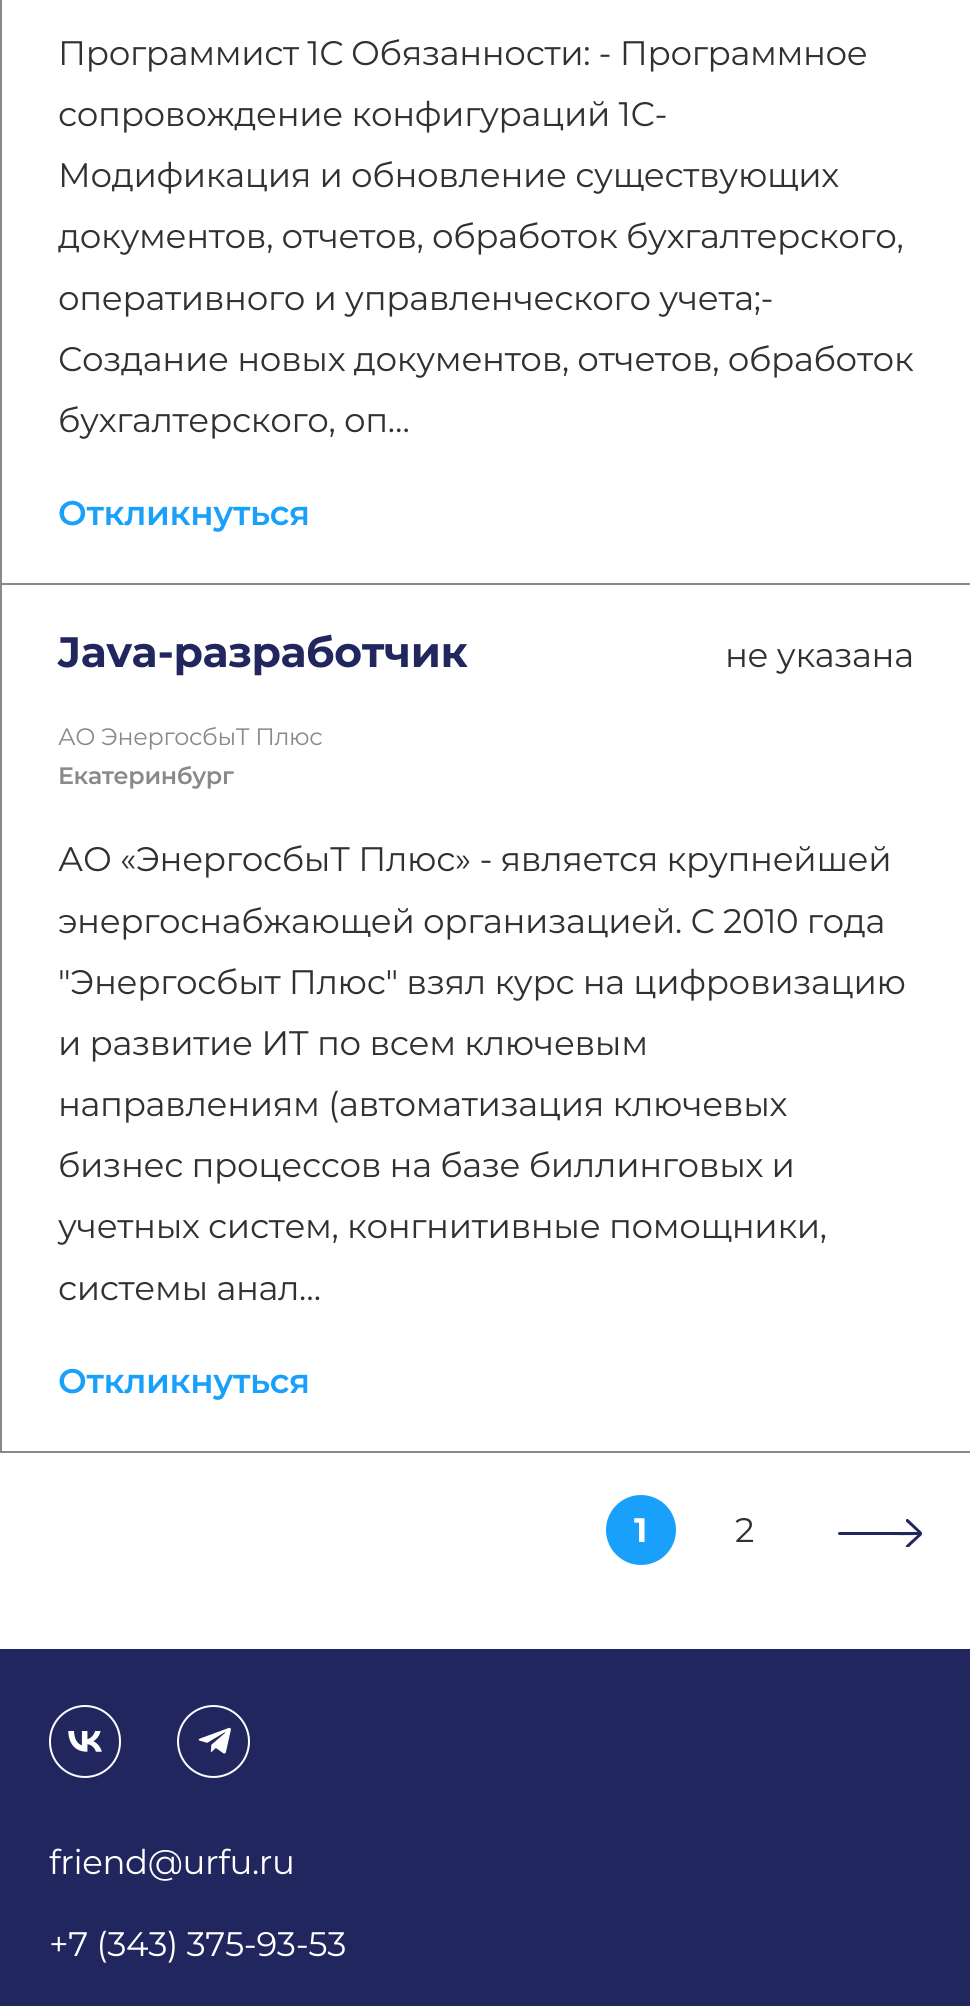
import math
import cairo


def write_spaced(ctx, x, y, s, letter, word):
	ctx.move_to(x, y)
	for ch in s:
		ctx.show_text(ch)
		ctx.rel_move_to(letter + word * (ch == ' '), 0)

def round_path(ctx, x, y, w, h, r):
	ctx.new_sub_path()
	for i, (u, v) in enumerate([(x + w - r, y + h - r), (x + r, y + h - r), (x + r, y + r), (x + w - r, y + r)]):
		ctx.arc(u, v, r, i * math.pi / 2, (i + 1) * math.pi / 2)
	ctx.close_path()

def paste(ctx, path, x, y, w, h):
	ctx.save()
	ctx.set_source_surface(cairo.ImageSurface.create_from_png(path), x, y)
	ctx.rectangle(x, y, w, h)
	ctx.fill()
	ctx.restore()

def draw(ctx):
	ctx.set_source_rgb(0.129, 0.149, 0.369)
	ctx.paint()
	ctx.set_source_rgb(1, 1, 1)
	ctx.rectangle(0, 0, 970, 1649)
	ctx.fill()
	ctx.set_source_rgb(0.537, 0.537, 0.537)
	ctx.rectangle(0, 1451, 970, 2)
	ctx.rectangle(0, 0, 2, 583)
	ctx.fill()
	ctx.select_font_face('Montserrat')
	ctx.set_font_size(34)
	ctx.set_source_rgb(0.192, 0.192, 0.192)
	for x, y, s in [
		(58, 65, 'Программист 1С'),
		(351, 65, 'Обязанности: - Программное'),
		(58, 126, 'сопровождение конфигураций 1С-'),
		(58, 187, 'Модификация и обновление существующих'),
		(58, 248, 'документов, отчетов, обработок бухгалтерского,'),
		(58, 310, 'оперативного и управленческого учета;-'),
		(58, 371, 'Создание новых документов, отчетов, обработок'),
		(58, 432, 'бухгалтерского, оп…'),
	]:
		write_spaced(ctx, x, y, s, -0.35, 0)
	ctx.select_font_face('Montserrat SemiBold')
	ctx.set_source_rgb(0.094, 0.627, 0.984)
	write_spaced(ctx, 58, 525, 'Откликнуться', -0.35, 0)
	ctx.set_source_rgb(0.537, 0.537, 0.537)
	ctx.rectangle(0, 583, 970, 2)
	ctx.fill()
	ctx.rectangle(0, 583, 2, 868)
	ctx.fill()
	ctx.select_font_face('Montserrat', cairo.FONT_SLANT_NORMAL, cairo.FONT_WEIGHT_BOLD)
	ctx.set_font_size(42.5)
	ctx.set_source_rgb(0.129, 0.149, 0.369)
	write_spaced(ctx, 58, 667, 'Java-разработчик', -0.35, 0)
	ctx.select_font_face('Montserrat')
	ctx.set_font_size(34)
	ctx.set_source_rgb(0.192, 0.192, 0.192)
	write_spaced(ctx, 725, 667, 'не указана', -0.35, 0)
	ctx.set_font_size(23.75)
	ctx.set_source_rgb(0.537, 0.537, 0.537)
	write_spaced(ctx, 58, 745, 'АО ЭнергосбыТ Плюс', -0.35, 0)
	ctx.select_font_face('Montserrat SemiBold')
	write_spaced(ctx, 58, 784, 'Екатеринбург', -0.35, 0)
	ctx.select_font_face('Montserrat')
	ctx.set_font_size(34)
	ctx.set_source_rgb(0.192, 0.192, 0.192)
	for x, y, s in [
		(58, 871, 'АО «ЭнергосбыТ Плюс» - является крупнейшей'),
		(58, 933, 'энергоснабжающей организацией. С 2010 года'),
		(58, 994, '"Энергосбыт Плюс" взял курс на цифровизацию'),
		(58, 1055, 'и развитие ИТ по всем ключевым'),
		(58, 1116, 'направлениям (автоматизация ключевых'),
		(58, 1177, 'бизнес процессов на базе биллинговых и'),
		(58, 1238, 'учетных систем, конгнитивные помощники,'),
		(58, 1300, 'системы анал…'),
	]:
		write_spaced(ctx, x, y, s, -0.35, 0)
	ctx.select_font_face('Montserrat SemiBold')
	ctx.set_source_rgb(0.094, 0.627, 0.984)
	write_spaced(ctx, 58, 1393, 'Откликнуться', -0.35, 0)
	ctx.new_path()
	ctx.arc(641, 1530, 35, 0, 2 * math.pi)
	ctx.fill()
	ctx.select_font_face('Montserrat', cairo.FONT_SLANT_NORMAL, cairo.FONT_WEIGHT_BOLD)
	ctx.set_source_rgb(1, 1, 1)
	write_spaced(ctx, 634, 1542, '1', -0.35, 0)
	ctx.select_font_face('Montserrat')
	ctx.set_source_rgb(0.192, 0.192, 0.192)
	write_spaced(ctx, 735, 1542, '2', -0.35, 0)
	ctx.save()
	ctx.rectangle(838, 1519, 84, 28)
	ctx.clip()
	ctx.set_source_rgb(0.129, 0.149, 0.369)
	ctx.new_path()
	ctx.move_to(908.5, 1519.5)
	ctx.curve_to(907.5, 1518.5, 906, 1519, 906, 1520)
	ctx.line_to(906, 1521.5)
	ctx.line_to(917.5, 1532)
	ctx.line_to(887, 1532)
	ctx.curve_to(886, 1532.5, 886, 1534, 887, 1534.5)
	ctx.curve_to(888, 1535.5, 914.5, 1535, 917.5, 1535)
	ctx.curve_to(916, 1536.5, 906, 1545, 905.5, 1546.5)
	ctx.line_to(906.5, 1547.5)
	ctx.curve_to(908, 1549, 909.5, 1546.5, 910.5, 1545.5)
	ctx.line_to(919, 1537.5)
	ctx.curve_to(923.5, 1534, 923, 1533, 919, 1529.5)
	ctx.close_path()
	ctx.fill()
	ctx.restore()
	ctx.set_source_rgb(0.129, 0.149, 0.369)
	round_path(ctx, 838, 1532, 80, 3, 1.5)
	ctx.fill()
	paste(ctx, 'media/1.png', 68, 1731, 34, 21)
	round_path(ctx, 50, 1706, 70, 71, 35)
	ctx.set_source_rgb(1, 1, 1)
	ctx.stroke()
	paste(ctx, 'media/2.png', 198, 1727, 33, 27)
	ctx.arc(213.5, 1741.5, 35.5, 0, 2 * math.pi)
	ctx.stroke()
	write_spaced(ctx, 49, 1874, 'friend@urfu.ru', -0.35, 0)
	write_spaced(ctx, 49, 1956, '+7 (343) 375-93-53', -0.35, 0)


surface = cairo.ImageSurface(cairo.FORMAT_RGB24, 970, 2006)
ctx = cairo.Context(surface)
options = cairo.FontOptions()
options.set_hint_metrics(cairo.HINT_METRICS_OFF)
options.set_hint_style(cairo.HINT_STYLE_NONE)
ctx.set_font_options(options)
ctx.set_miter_limit(4)
draw(ctx)
surface.write_to_png('image.png')
